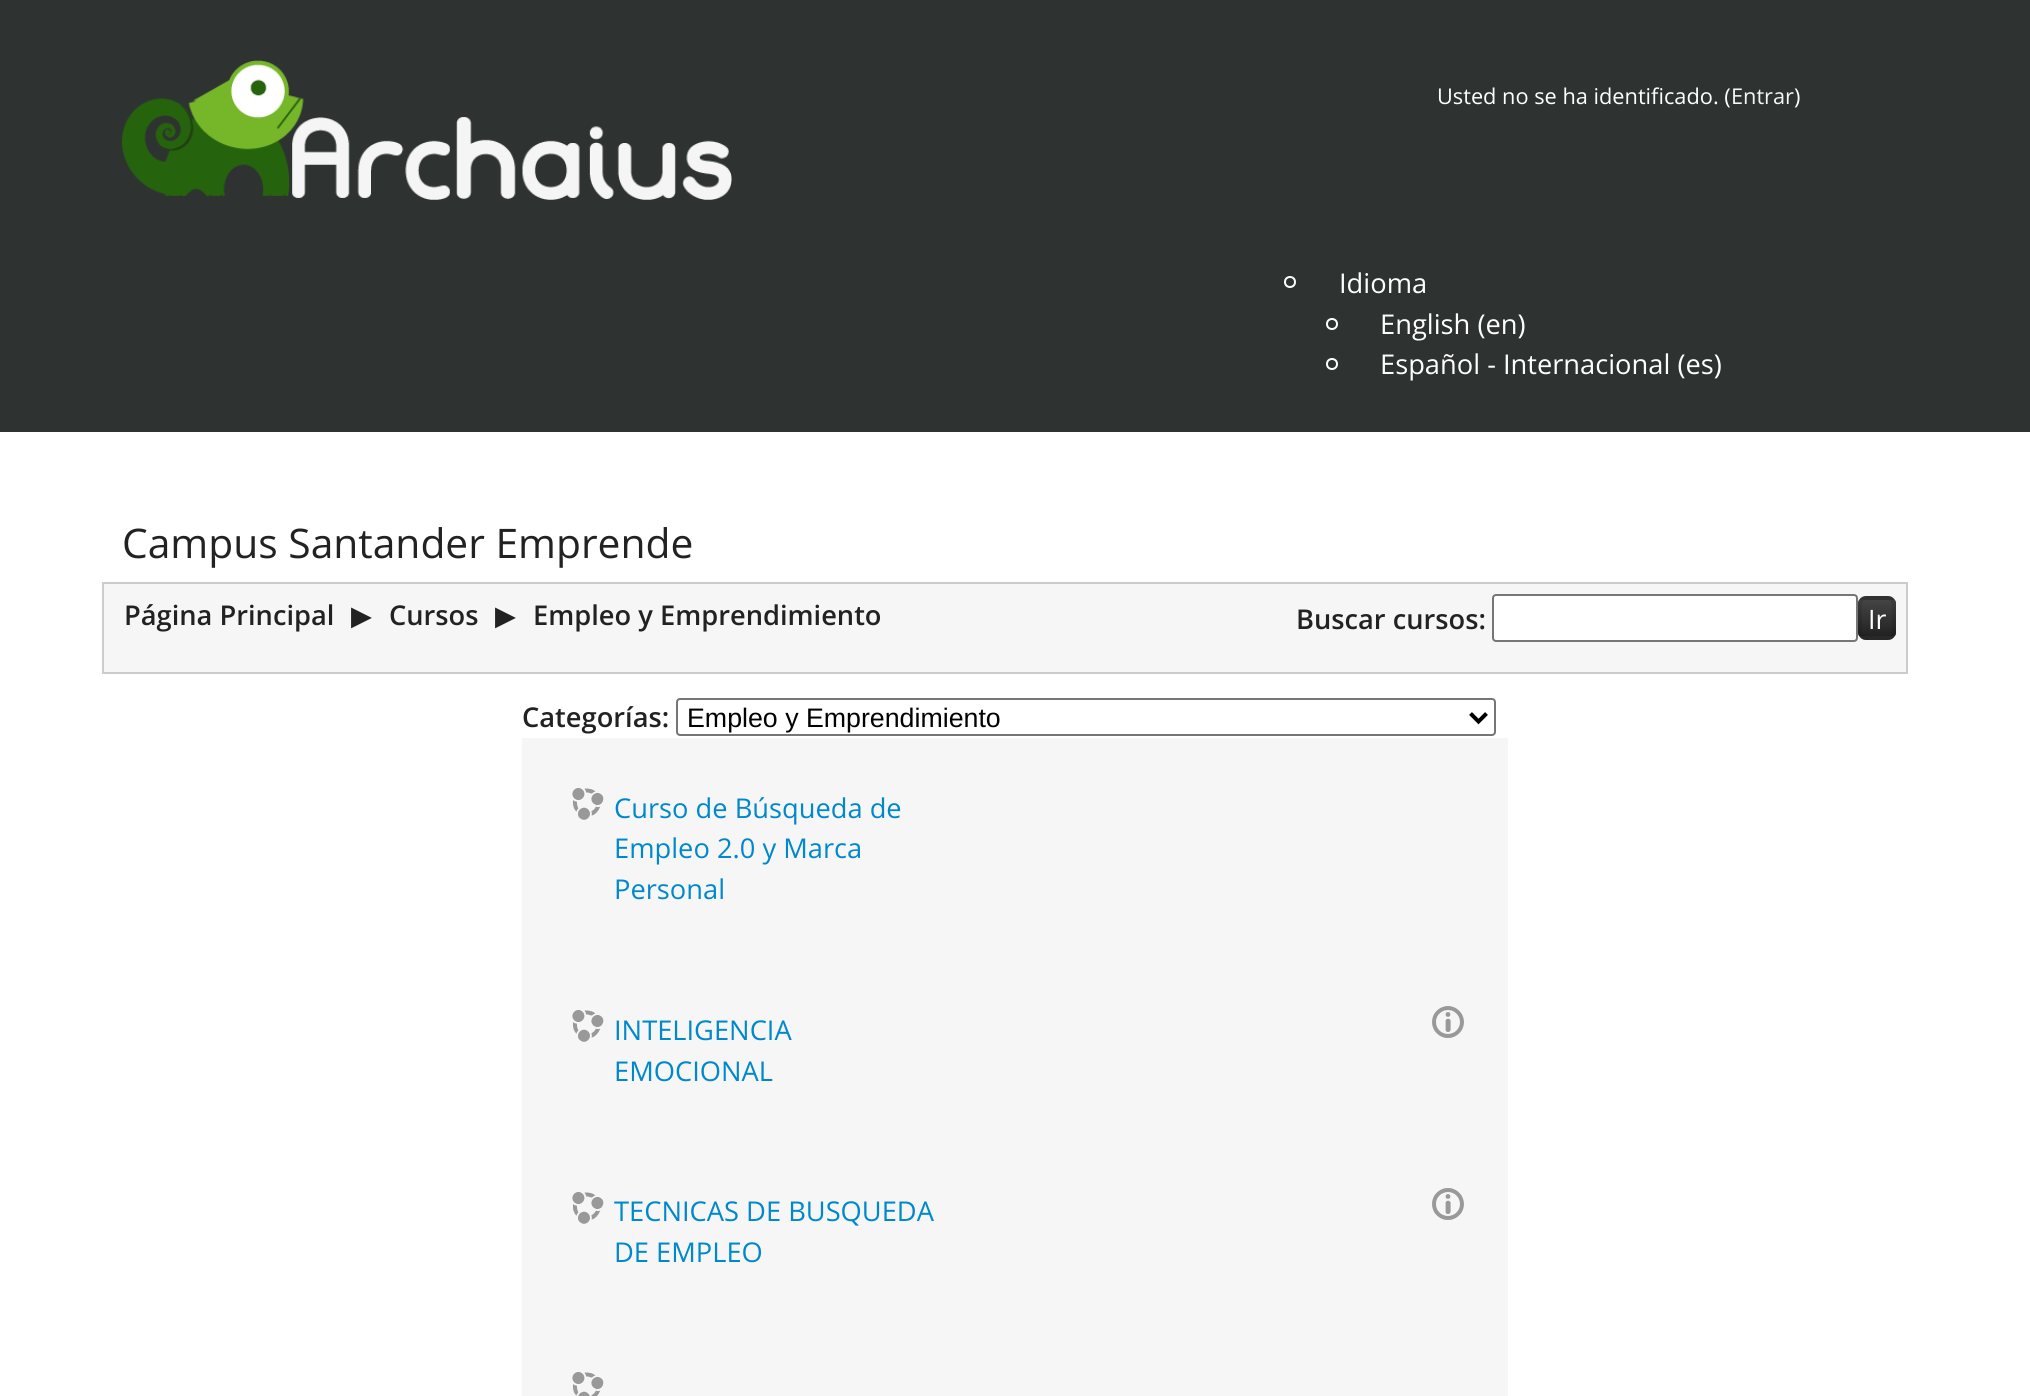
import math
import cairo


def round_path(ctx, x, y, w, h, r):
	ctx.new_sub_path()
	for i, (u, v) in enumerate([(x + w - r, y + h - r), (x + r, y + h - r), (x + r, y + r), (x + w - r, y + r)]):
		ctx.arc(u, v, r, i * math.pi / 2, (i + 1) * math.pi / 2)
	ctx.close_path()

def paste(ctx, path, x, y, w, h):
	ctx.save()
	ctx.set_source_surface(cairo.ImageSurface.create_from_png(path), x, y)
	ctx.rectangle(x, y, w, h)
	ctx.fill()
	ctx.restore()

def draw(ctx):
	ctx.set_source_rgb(1, 1, 1)
	ctx.paint()
	ctx.set_source_rgb(0.18, 0.2, 0.196)
	ctx.rectangle(0, 0, 2030, 432)
	ctx.fill()
	paste(ctx, 'media/1.png', 122, 60, 610, 140)
	ctx.select_font_face('Open Sans')
	ctx.set_font_size(21.75)
	ctx.set_source_rgb(1, 1, 1)
	ctx.move_to(1437, 104)
	ctx.show_text('Usted no se ha identificado. (')
	ctx.set_source_rgb(0.961, 0.961, 0.961)
	ctx.move_to(1731, 104)
	ctx.show_text('Entrar')
	ctx.set_source_rgb(1, 1, 1)
	ctx.move_to(1794, 104)
	ctx.show_text(')')
	ctx.new_path()
	ctx.arc(1290, 282, 5, 0, 2 * math.pi)
	ctx.stroke()
	ctx.set_font_size(27.25)
	ctx.move_to(1339, 293)
	ctx.show_text('Idioma')
	ctx.new_path()
	ctx.arc(1332, 324, 5, 0, 2 * math.pi)
	ctx.stroke()
	ctx.move_to(1380, 334)
	ctx.show_text('English (en)')
	ctx.new_path()
	ctx.arc(1332, 364, 5, 0, 2 * math.pi)
	ctx.stroke()
	ctx.move_to(1380, 374)
	ctx.show_text('Español - Internacional (es)')
	ctx.set_font_size(40.75)
	ctx.set_source_rgb(0.133, 0.133, 0.133)
	ctx.move_to(122, 558)
	ctx.show_text('Campus Santander Emprende')
	ctx.set_source_rgb(0.961, 0.961, 0.961)
	ctx.rectangle(103, 583, 1804, 90)
	ctx.fill_preserve()
	ctx.set_source_rgb(0.8, 0.8, 0.8)
	ctx.stroke()
	ctx.select_font_face('Open Sans SemiBold')
	ctx.set_font_size(27.25)
	ctx.set_source_rgb(0.133, 0.133, 0.133)
	ctx.move_to(124, 625)
	ctx.show_text('Página Principal')
	ctx.select_font_face('DejaVu Sans')
	ctx.move_to(351, 625)
	ctx.show_text('▶')
	ctx.select_font_face('Open Sans SemiBold')
	ctx.move_to(389, 625)
	ctx.show_text('Cursos')
	ctx.select_font_face('DejaVu Sans')
	ctx.move_to(495, 625)
	ctx.show_text('▶')
	ctx.select_font_face('Open Sans SemiBold')
	ctx.move_to(533, 625)
	ctx.show_text('Empleo y Emprendimiento')
	ctx.move_to(1296, 629)
	ctx.show_text('Buscar cursos:')
	ctx.set_source_rgb(1, 1, 1)
	round_path(ctx, 1493, 595, 364, 46, 3)
	ctx.fill_preserve()
	ctx.set_source_rgb(0.463, 0.463, 0.463)
	ctx.stroke()
	ctx.set_source_rgb(0.212, 0.212, 0.212)
	round_path(ctx, 1858, 596, 38, 44, 8)
	ctx.fill()
	ctx.save()
	round_path(ctx, 1858, 596, 38, 44, 8)
	ctx.clip()
	gradient = cairo.LinearGradient(1877, 600, 1877, 636)
	gradient.add_color_stop_rgba(0, 0.267, 0.267, 0.267, 1)
	gradient.add_color_stop_rgba(1, 0.133, 0.133, 0.133, 1)
	ctx.set_source(gradient)
	ctx.rectangle(1858, 600, 38, 36)
	ctx.fill()
	ctx.restore()
	ctx.new_path()
	ctx.move_to(1892, 636)
	ctx.curve_to(1891, 637.5, 1889.5, 638, 1888, 638)
	ctx.line_to(1866, 638)
	ctx.curve_to(1864.5, 638, 1863, 637.5, 1862, 636)
	ctx.set_source_rgba(0, 0, 0, 0.25)
	ctx.set_line_width(4)
	ctx.stroke()
	ctx.new_path()
	ctx.move_to(1862, 636)
	ctx.curve_to(1859.5, 634, 1860, 630.5, 1860, 627.5)
	ctx.line_to(1860, 608.5)
	ctx.curve_to(1860, 604.5, 1859.5, 599, 1865, 598)
	ctx.line_to(1889, 598)
	ctx.curve_to(1894.5, 599, 1894, 604.5, 1894, 608.5)
	ctx.line_to(1894, 627.5)
	ctx.curve_to(1894, 630.5, 1894.5, 634, 1892, 636)
	ctx.set_source_rgba(0, 0, 0, 0.1)
	ctx.stroke()
	ctx.select_font_face('Open Sans')
	ctx.set_font_size(26.75)
	ctx.set_source_rgb(1, 1, 1)
	ctx.move_to(1868, 629)
	ctx.show_text('Ir')
	ctx.select_font_face('Open Sans SemiBold')
	ctx.set_font_size(27.25)
	ctx.set_source_rgb(0.133, 0.133, 0.133)
	ctx.move_to(522, 727)
	ctx.show_text('Categorías:')
	round_path(ctx, 677, 699, 818, 36, 3)
	ctx.set_source_rgb(0.463, 0.463, 0.463)
	ctx.set_line_width(2)
	ctx.stroke()
	ctx.new_path()
	ctx.move_to(1470.5, 713.5)
	ctx.line_to(1478.5, 721.5)
	ctx.line_to(1486.5, 713.5)
	ctx.set_source_rgb(0, 0, 0)
	ctx.set_line_width(4)
	ctx.stroke()
	ctx.select_font_face('Liberation Sans')
	ctx.set_font_size(26.75)
	ctx.move_to(687, 727)
	ctx.show_text('Empleo y Emprendimiento')
	ctx.set_source_rgb(0.961, 0.961, 0.961)
	ctx.rectangle(522, 738, 986, 658)
	ctx.fill()
	paste(ctx, 'media/2.png', 572, 788, 32, 32)
	ctx.select_font_face('Open Sans')
	ctx.set_font_size(27.25)
	ctx.set_source_rgb(0, 0.533, 0.8)
	for x, y, s in [
		(614, 818, 'Curso de Búsqueda de'),
		(614, 858, 'Empleo 2.0 y Marca'),
		(614, 899, 'Personal'),
	]:
		ctx.move_to(x, y)
		ctx.show_text(s)
	paste(ctx, 'media/3.png', 572, 1010, 32, 32)
	ctx.move_to(614, 1040)
	ctx.show_text('INTELIGENCIA')
	ctx.move_to(614, 1081)
	ctx.show_text('EMOCIONAL')
	paste(ctx, 'media/4.png', 1432, 1006, 32, 32)
	paste(ctx, 'media/2.png', 572, 1192, 32, 32)
	ctx.move_to(614, 1221)
	ctx.show_text('TECNICAS DE BUSQUEDA')
	ctx.move_to(614, 1262)
	ctx.show_text('DE EMPLEO')
	paste(ctx, 'media/5.png', 1432, 1188, 32, 32)
	paste(ctx, 'media/6.png', 572, 1372, 32, 24)


surface = cairo.ImageSurface(cairo.FORMAT_RGB24, 2030, 1396)
ctx = cairo.Context(surface)
options = cairo.FontOptions()
options.set_hint_metrics(cairo.HINT_METRICS_OFF)
options.set_hint_style(cairo.HINT_STYLE_NONE)
ctx.set_font_options(options)
ctx.set_miter_limit(4)
draw(ctx)
surface.write_to_png('image.png')
